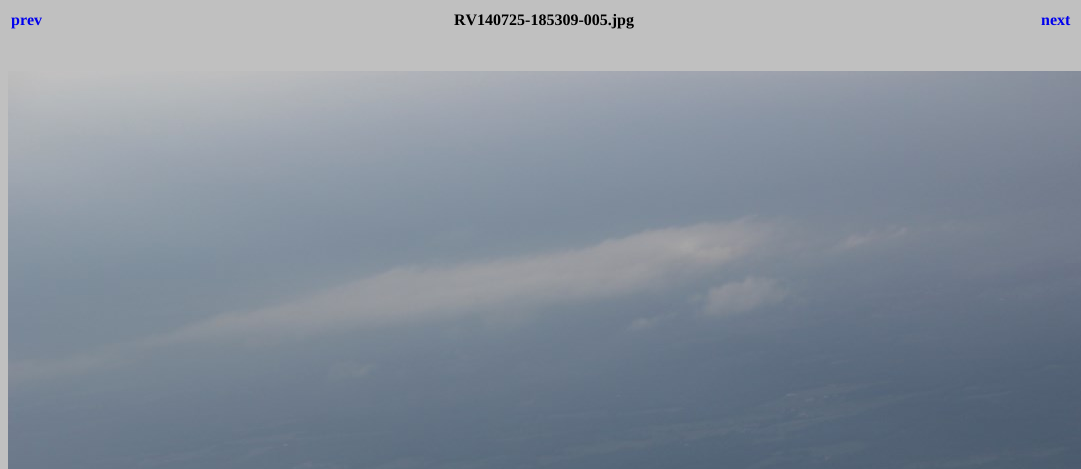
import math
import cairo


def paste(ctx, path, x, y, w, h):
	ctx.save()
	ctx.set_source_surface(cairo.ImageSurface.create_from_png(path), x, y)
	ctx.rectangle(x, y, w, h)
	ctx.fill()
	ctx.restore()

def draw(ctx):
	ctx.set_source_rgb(0.753, 0.753, 0.753)
	ctx.paint()
	ctx.select_font_face('Liberation Serif', cairo.FONT_SLANT_NORMAL, cairo.FONT_WEIGHT_BOLD)
	ctx.set_font_size(16)
	ctx.set_source_rgb(0, 0, 0.933)
	ctx.move_to(11, 25)
	ctx.show_text('prev')
	ctx.set_source_rgb(0, 0, 0)
	ctx.move_to(454, 25)
	ctx.show_text('RV140725-185309-005.jpg')
	ctx.set_source_rgb(0, 0, 0.933)
	ctx.move_to(1041, 25)
	ctx.show_text('next')
	paste(ctx, 'media/1.png', 8, 71, 1073, 398)


surface = cairo.ImageSurface(cairo.FORMAT_RGB24, 1081, 469)
ctx = cairo.Context(surface)
options = cairo.FontOptions()
options.set_hint_metrics(cairo.HINT_METRICS_OFF)
options.set_hint_style(cairo.HINT_STYLE_NONE)
ctx.set_font_options(options)
ctx.set_miter_limit(4)
draw(ctx)
surface.write_to_png('image.png')
